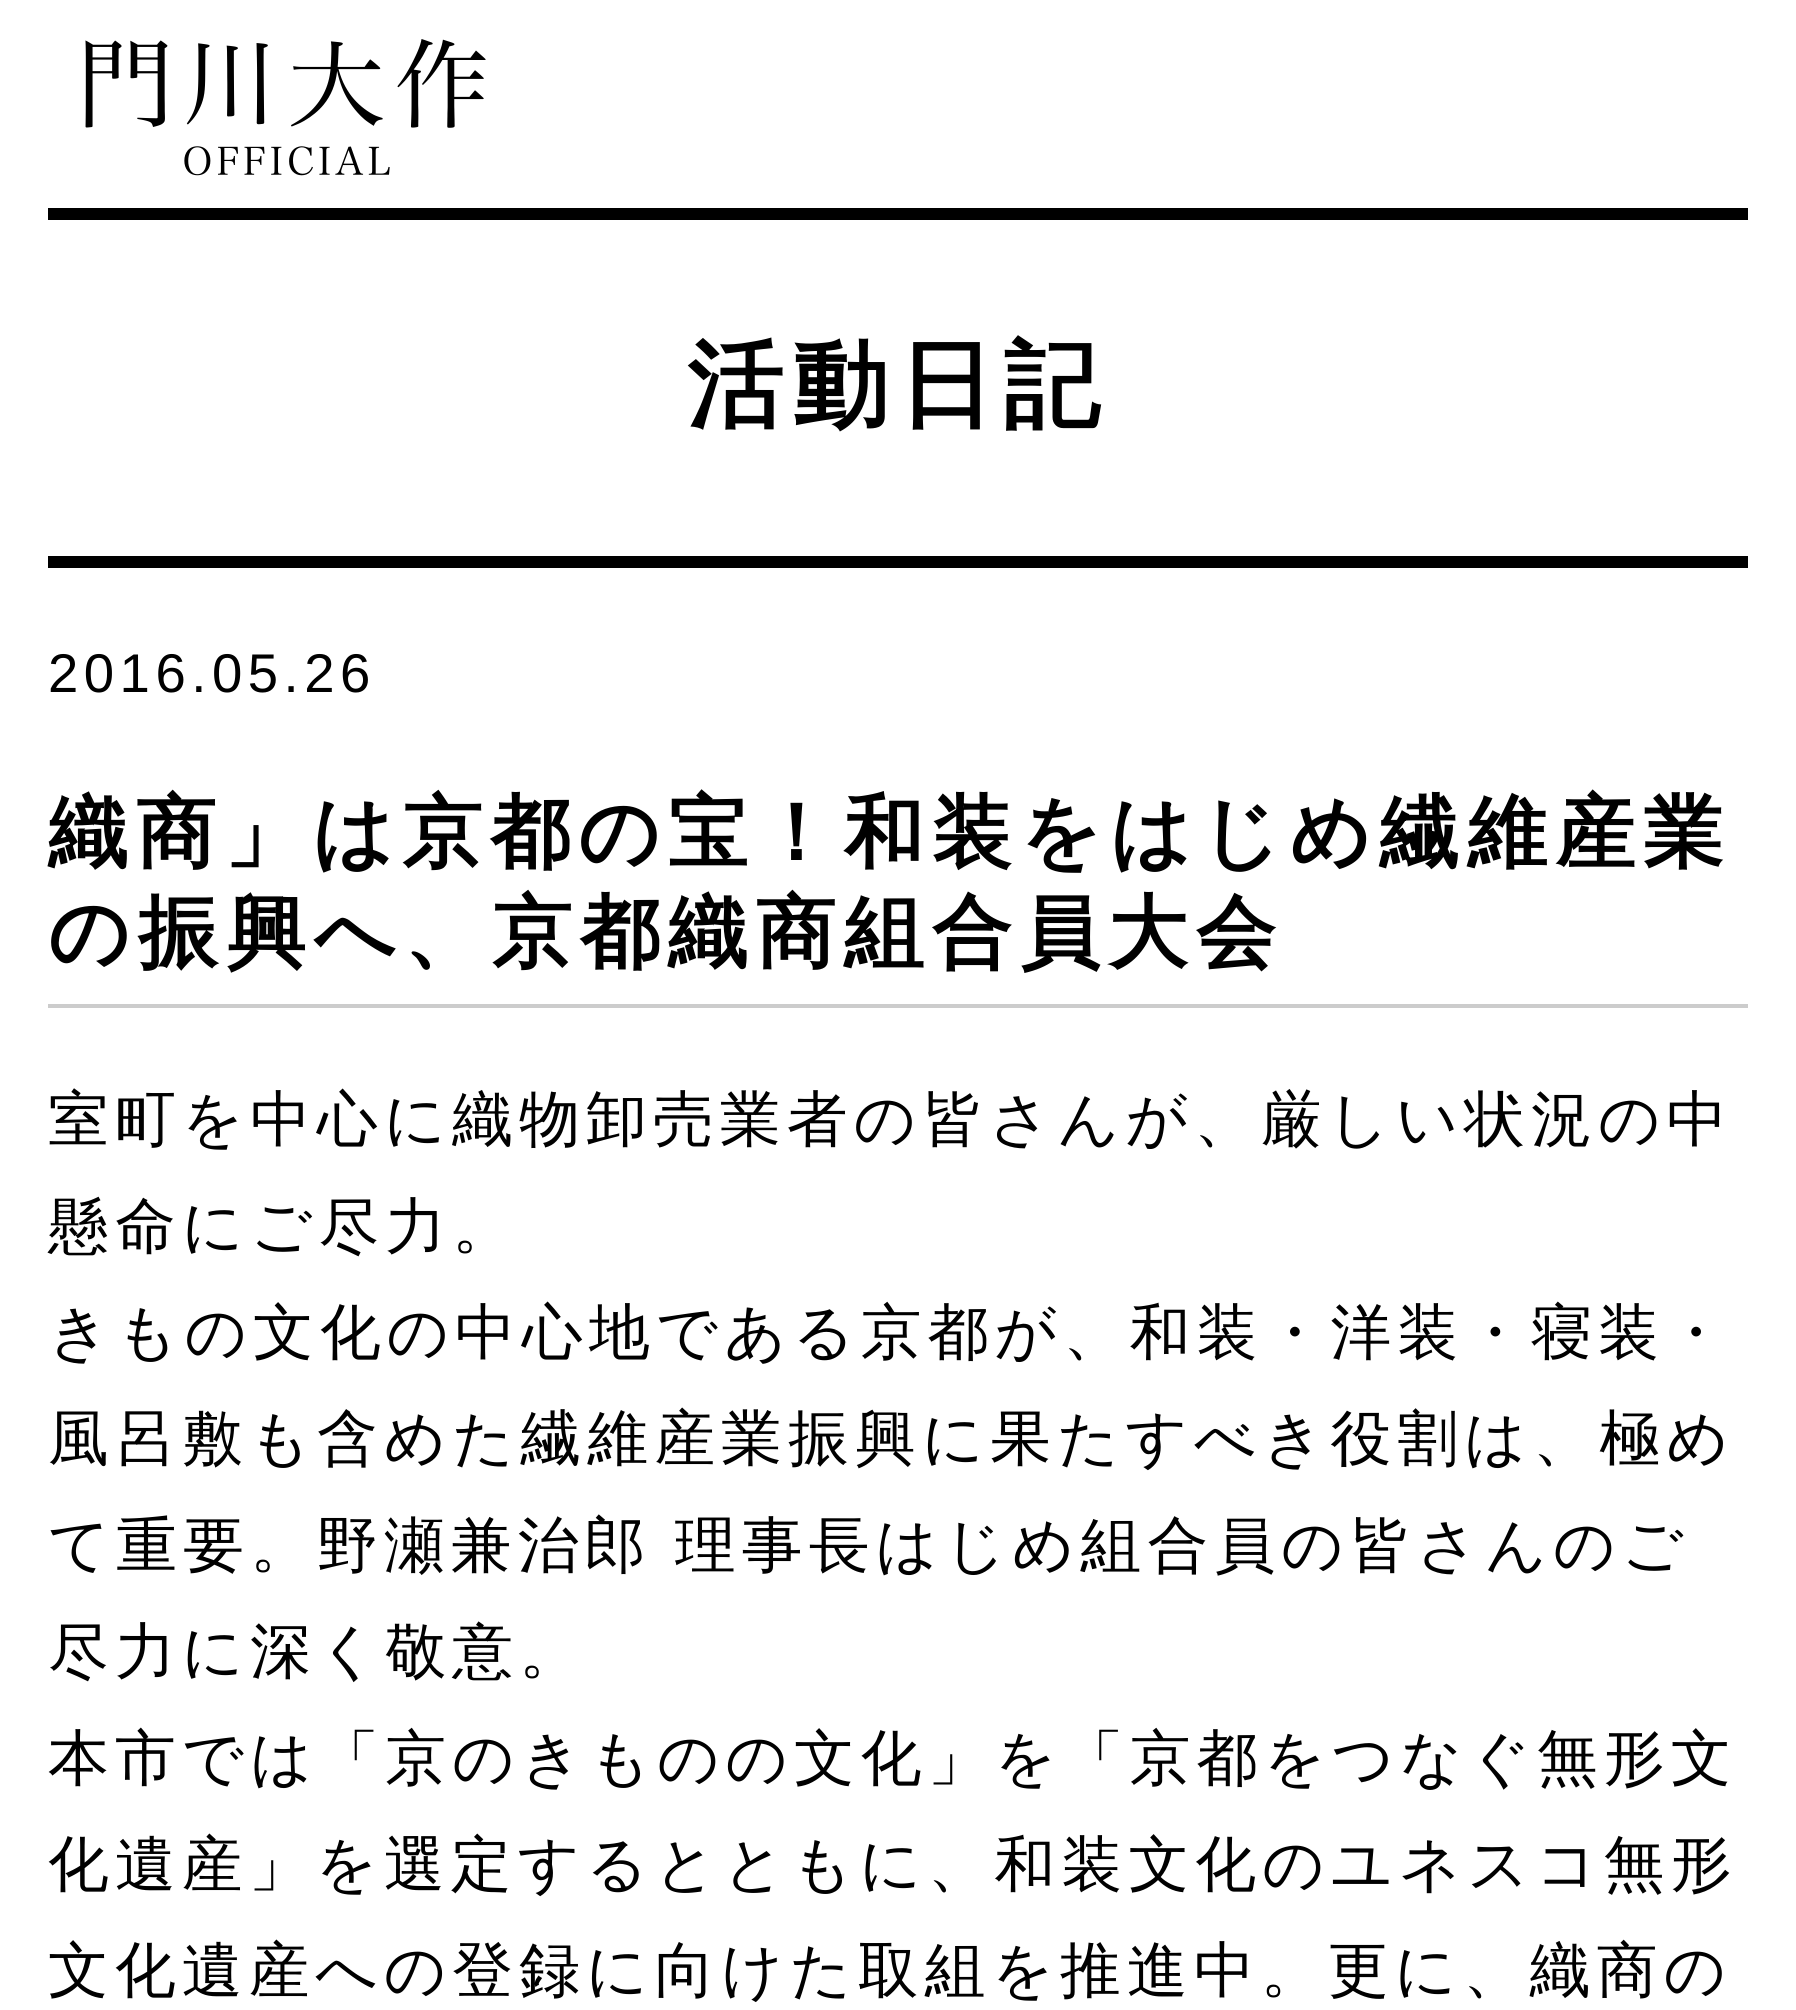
import math
import cairo


def write_spaced(ctx, x, y, s, letter, word):
	ctx.move_to(x, y)
	for ch in s:
		ctx.show_text(ch)
		ctx.rel_move_to(letter + word * (ch == ' '), 0)

def draw(ctx):
	ctx.set_source_rgb(1, 1, 1)
	ctx.paint()
	ctx.select_font_face('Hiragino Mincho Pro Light')
	ctx.set_font_size(96)
	ctx.set_source_rgb(0, 0, 0)
	write_spaced(ctx, 77, 120, '門川大作', 9.5, 0)
	ctx.set_font_size(38.5)
	write_spaced(ctx, 182, 176, 'OFFICIAL', 3.75, 0)
	ctx.rectangle(48, 208, 1700, 12)
	ctx.fill()
	ctx.select_font_face('WenQuanYi Zen Hei', cairo.FONT_SLANT_NORMAL, cairo.FONT_WEIGHT_BOLD)
	ctx.set_font_size(96)
	write_spaced(ctx, 687, 418, '活動日記', 9.5, 0)
	ctx.rectangle(48, 556, 1700, 12)
	ctx.fill()
	ctx.select_font_face('Liberation Sans')
	ctx.set_font_size(54.5)
	write_spaced(ctx, 48, 692, '2016.05.26', 5.5, 0)
	ctx.set_source_rgb(0.8, 0.8, 0.8)
	ctx.rectangle(48, 1004, 1700, 4)
	ctx.fill()
	ctx.select_font_face('WenQuanYi Zen Hei', cairo.FONT_SLANT_NORMAL, cairo.FONT_WEIGHT_BOLD)
	ctx.set_font_size(80)
	ctx.set_source_rgb(0, 0, 0)
	write_spaced(ctx, 48, 860, '織商」は京都の宝！和装をはじめ繊維産業', 8, 0)
	write_spaced(ctx, 48, 960, 'の振興へ、京都織商組合員大会', 8, 0)
	ctx.select_font_face('WenQuanYi Zen Hei Medium')
	ctx.set_font_size(60.8)
	for x, y, s in [
		(48, 1140, '室町を中心に織物卸売業者の皆さんが、厳しい状況の中'),
		(48, 1247, '懸命にご尽力。'),
		(48, 1353, 'きもの文化の中心地である京都が、和装・洋装・寝装・'),
		(48, 1459, '風呂敷も含めた繊維産業振興に果たすべき役割は、極め'),
	]:
		write_spaced(ctx, x, y, s, 6.1, 0)
	write_spaced(ctx, 48, 1566, 'て重要。野瀬兼治郎 理事長はじめ組合員の皆さんのご', 6.1, -1)
	for x, y, s in [
		(48, 1672, '尽力に深く敬意。'),
		(48, 1779, '本市では「京のきものの文化」を「京都をつなぐ無形文'),
		(48, 1885, '化遺産」を選定するとともに、和装文化のユネスコ無形'),
		(48, 1991, '文化遺産への登録に向けた取組を推進中。更に、織商の'),
	]:
		write_spaced(ctx, x, y, s, 6.1, 0)


surface = cairo.ImageSurface(cairo.FORMAT_RGB24, 1796, 2010)
ctx = cairo.Context(surface)
options = cairo.FontOptions()
options.set_hint_metrics(cairo.HINT_METRICS_OFF)
options.set_hint_style(cairo.HINT_STYLE_NONE)
ctx.set_font_options(options)
ctx.set_miter_limit(4)
draw(ctx)
surface.write_to_png('image.png')
